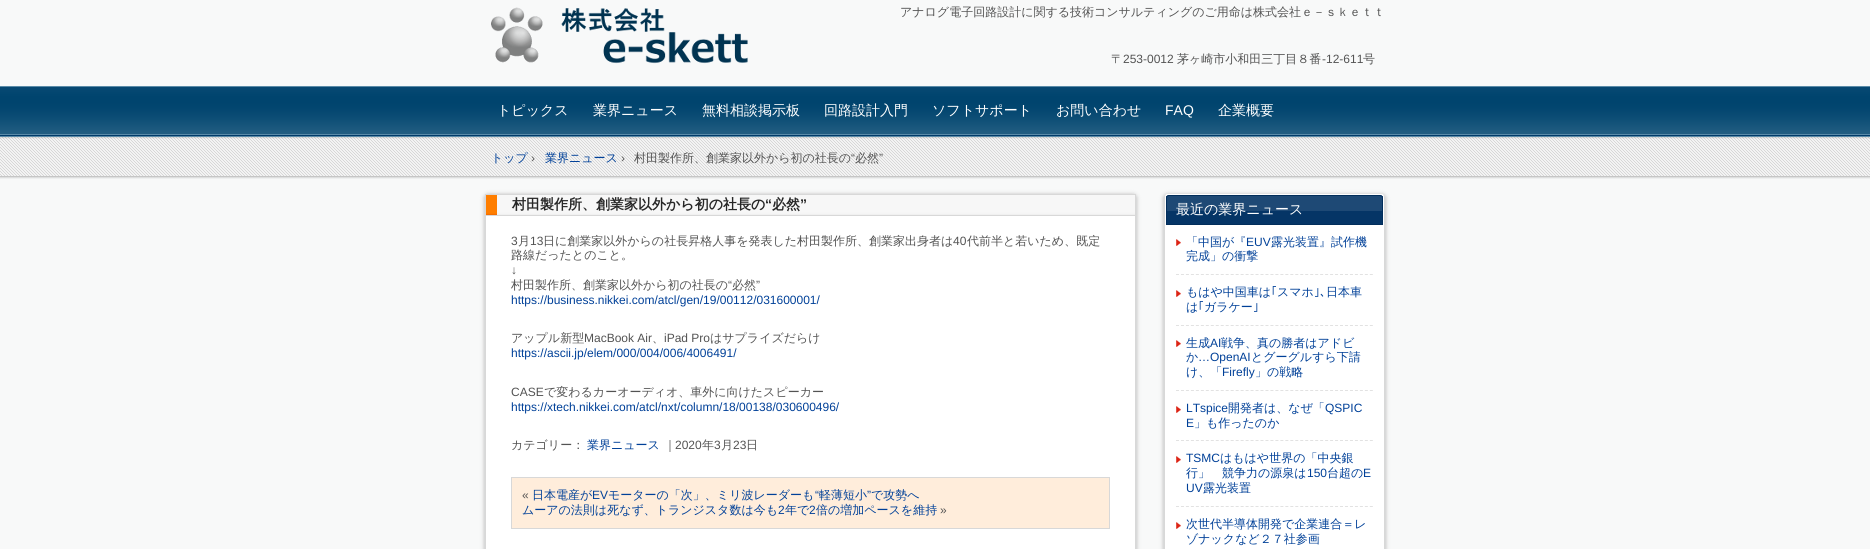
import math
import cairo


def round_path(ctx, x, y, w, h, r):
	ctx.new_sub_path()
	for i, (u, v) in enumerate([(x + w - r, y + h - r), (x + r, y + h - r), (x + r, y + r), (x + w - r, y + r)]):
		ctx.arc(u, v, r, i * math.pi / 2, (i + 1) * math.pi / 2)
	ctx.close_path()

def blur_box(ctx, x, y, w, h, r, blur, alpha):
	ctx.push_group_with_content(cairo.CONTENT_ALPHA)
	ctx.set_operator(cairo.OPERATOR_SOURCE)
	for i in range(15, -16, -2):
		e = blur * i / 6
		if min(w, h) + 2 * e > 0:
			ctx.set_source_rgba(0, 0, 0, alpha * math.erfc((i - 1) / 8.5) / 2)
			round_path(ctx, x - e, y - e, w + 2 * e, h + 2 * e, max(0, min(r + e + blur * .6, min(w, h) / 2 + e)))
			ctx.fill()
	ctx.mask(ctx.pop_group())

def paste(ctx, path, x, y, w, h):
	ctx.save()
	ctx.set_source_surface(cairo.ImageSurface.create_from_png(path), x, y)
	ctx.rectangle(x, y, w, h)
	ctx.fill()
	ctx.restore()

def draw(ctx):
	ctx.set_source_rgb(0.969, 0.973, 0.973)
	ctx.paint()
	paste(ctx, 'media/1.png', 0, 137, 1870, 42)
	paste(ctx, 'media/2.png', 491, 7, 257, 57)
	ctx.select_font_face('WenQuanYi Zen Hei Medium')
	ctx.set_font_size(12)
	ctx.set_source_rgb(0.325, 0.325, 0.325)
	ctx.move_to(900, 16)
	ctx.show_text('アナログ電子回路設計に関する技術コンサルティングのご用命は株式会社ｅ－ｓｋｅｔｔ')
	ctx.move_to(1111, 63)
	ctx.show_text('〒')
	ctx.select_font_face('Liberation Sans')
	ctx.move_to(1123, 63)
	ctx.show_text('253-0012')
	ctx.select_font_face('WenQuanYi Zen Hei Medium')
	ctx.move_to(1177, 63)
	ctx.show_text('茅ヶ崎市小和田三丁目８番')
	ctx.select_font_face('Liberation Sans')
	ctx.move_to(1322, 63)
	ctx.show_text('-12-611')
	ctx.select_font_face('WenQuanYi Zen Hei Medium')
	ctx.move_to(1363, 63)
	ctx.show_text('号')
	paste(ctx, 'media/3.png', 0, 86, 1870, 51)
	ctx.set_font_size(14)
	ctx.set_source_rgb(1, 1, 1)
	for x, y, s in [
		(497, 115, 'トピックス'),
		(593, 115, '業界ニュース'),
		(702, 115, '無料相談掲示板'),
		(824, 115, '回路設計入門'),
		(932, 115, 'ソフトサポート'),
		(1056, 115, 'お問い合わせ'),
	]:
		ctx.move_to(x, y)
		ctx.show_text(s)
	ctx.select_font_face('Liberation Sans')
	ctx.move_to(1165, 115)
	ctx.show_text('FAQ')
	ctx.select_font_face('WenQuanYi Zen Hei Medium')
	ctx.move_to(1218, 115)
	ctx.show_text('企業概要')
	ctx.set_font_size(12)
	ctx.set_source_rgb(0, 0.251, 0.596)
	ctx.move_to(491, 162)
	ctx.show_text('トップ')
	ctx.move_to(545, 162)
	ctx.show_text('業界ニュース')
	ctx.set_source_rgb(0.325, 0.325, 0.325)
	ctx.move_to(634, 162)
	ctx.show_text('村田製作所、創業家以外から初の社長の')
	ctx.select_font_face('Liberation Sans')
	ctx.move_to(851, 162)
	ctx.show_text('“')
	ctx.select_font_face('WenQuanYi Zen Hei Medium')
	ctx.move_to(855, 162)
	ctx.show_text('必然')
	ctx.select_font_face('Liberation Sans')
	for x, y, s in [
		(879, 162, '”'),
		(531, 162, '›'),
		(621, 162, '›'),
	]:
		ctx.move_to(x, y)
		ctx.show_text(s)
	ctx.set_source_rgb(0.769, 0.769, 0.769)
	blur_box(ctx, 484, 194, 653, 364, 4, 2, 1)
	ctx.set_source_rgb(1, 1, 1)
	ctx.rectangle(486, 216, 649, 333)
	ctx.fill()
	ctx.set_source_rgb(0.847, 0.847, 0.847)
	ctx.set_fill_rule(cairo.FILL_RULE_EVEN_ODD)
	ctx.new_path()
	ctx.move_to(485, 194)
	ctx.line_to(1136, 194)
	ctx.line_to(1136, 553)
	ctx.curve_to(1136, 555, 1135, 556, 1133, 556)
	ctx.line_to(488, 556)
	ctx.curve_to(486, 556, 485, 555, 485, 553)
	ctx.close_path()
	ctx.move_to(486, 194)
	ctx.line_to(1135, 194)
	ctx.line_to(1135, 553)
	ctx.curve_to(1135, 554, 1134, 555, 1133, 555)
	ctx.line_to(488, 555)
	ctx.curve_to(487, 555, 486, 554, 486, 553)
	ctx.close_path()
	ctx.fill()
	paste(ctx, 'media/4.png', 486, 195, 649, 20)
	ctx.rectangle(486, 194, 649, 1)
	ctx.fill()
	ctx.rectangle(486, 215, 649, 1)
	ctx.fill()
	ctx.select_font_face('WenQuanYi Zen Hei', cairo.FONT_SLANT_NORMAL, cairo.FONT_WEIGHT_BOLD)
	ctx.set_font_size(14)
	ctx.set_source_rgb(0.153, 0.153, 0.153)
	ctx.move_to(512, 209)
	ctx.show_text('村田製作所、創業家以外から初の社長の')
	ctx.select_font_face('Liberation Sans', cairo.FONT_SLANT_NORMAL, cairo.FONT_WEIGHT_BOLD)
	ctx.move_to(765, 209)
	ctx.show_text('“')
	ctx.select_font_face('WenQuanYi Zen Hei', cairo.FONT_SLANT_NORMAL, cairo.FONT_WEIGHT_BOLD)
	ctx.move_to(772, 209)
	ctx.show_text('必然')
	ctx.select_font_face('Liberation Sans', cairo.FONT_SLANT_NORMAL, cairo.FONT_WEIGHT_BOLD)
	ctx.move_to(800, 209)
	ctx.show_text('”')
	ctx.select_font_face('Liberation Sans')
	ctx.set_font_size(12)
	ctx.set_source_rgb(0.325, 0.325, 0.325)
	ctx.move_to(511, 245)
	ctx.show_text('3')
	ctx.select_font_face('WenQuanYi Zen Hei Medium')
	ctx.move_to(518, 245)
	ctx.show_text('月')
	ctx.select_font_face('Liberation Sans')
	ctx.move_to(530, 245)
	ctx.show_text('13')
	ctx.select_font_face('WenQuanYi Zen Hei Medium')
	ctx.move_to(543, 245)
	ctx.show_text('日に創業家以外からの社長昇格人事を発表した村田製作所、創業家出身者は')
	ctx.select_font_face('Liberation Sans')
	ctx.move_to(953, 245)
	ctx.show_text('40')
	ctx.select_font_face('WenQuanYi Zen Hei Medium')
	ctx.move_to(967, 245)
	ctx.show_text('代前半と若いため、既定')
	ctx.move_to(511, 259)
	ctx.show_text('路線だったとのこと。')
	ctx.select_font_face('Liberation Sans')
	ctx.move_to(511, 274)
	ctx.show_text('↓')
	ctx.select_font_face('WenQuanYi Zen Hei Medium')
	ctx.move_to(511, 289)
	ctx.show_text('村田製作所、創業家以外から初の社長の')
	ctx.select_font_face('Liberation Sans')
	ctx.move_to(728, 289)
	ctx.show_text('“')
	ctx.select_font_face('WenQuanYi Zen Hei Medium')
	ctx.move_to(732, 289)
	ctx.show_text('必然')
	ctx.select_font_face('Liberation Sans')
	ctx.move_to(756, 289)
	ctx.show_text('”')
	ctx.set_source_rgb(0, 0.251, 0.596)
	ctx.move_to(511, 304)
	ctx.show_text('https://business.nikkei.com/atcl/gen/19/00112/031600001/')
	ctx.select_font_face('WenQuanYi Zen Hei Medium')
	ctx.set_source_rgb(0.325, 0.325, 0.325)
	ctx.move_to(511, 342)
	ctx.show_text('アップル新型')
	ctx.select_font_face('Liberation Sans')
	ctx.move_to(584, 342)
	ctx.show_text('MacBook Air')
	ctx.select_font_face('WenQuanYi Zen Hei Medium')
	ctx.move_to(652, 342)
	ctx.show_text('、')
	ctx.select_font_face('Liberation Sans')
	ctx.move_to(664, 342)
	ctx.show_text('iPad Pro')
	ctx.select_font_face('WenQuanYi Zen Hei Medium')
	ctx.move_to(710, 342)
	ctx.show_text('はサプライズだらけ')
	ctx.select_font_face('Liberation Sans')
	ctx.set_source_rgb(0, 0.251, 0.596)
	ctx.move_to(511, 357)
	ctx.show_text('https://ascii.jp/elem/000/004/006/4006491/')
	ctx.set_source_rgb(0.325, 0.325, 0.325)
	ctx.move_to(511, 396)
	ctx.show_text('CASE')
	ctx.select_font_face('WenQuanYi Zen Hei Medium')
	ctx.move_to(544, 396)
	ctx.show_text('で変わるカーオーディオ、車外に向けたスピーカー')
	ctx.select_font_face('Liberation Sans')
	ctx.set_source_rgb(0, 0.251, 0.596)
	ctx.move_to(511, 411)
	ctx.show_text('https://xtech.nikkei.com/atcl/nxt/column/18/00138/030600496/')
	ctx.select_font_face('WenQuanYi Zen Hei Medium')
	ctx.set_source_rgb(0.325, 0.325, 0.325)
	ctx.move_to(511, 449)
	ctx.show_text('カテゴリー：')
	ctx.set_source_rgb(0, 0.251, 0.596)
	ctx.move_to(587, 449)
	ctx.show_text('業界ニュース')
	ctx.set_source_rgb(0.325, 0.325, 0.325)
	ctx.move_to(664, 449)
	ctx.show_text('｜')
	ctx.select_font_face('Liberation Sans')
	ctx.move_to(675, 449)
	ctx.show_text('2020')
	ctx.select_font_face('WenQuanYi Zen Hei Medium')
	ctx.move_to(702, 449)
	ctx.show_text('年')
	ctx.select_font_face('Liberation Sans')
	ctx.move_to(714, 449)
	ctx.show_text('3')
	ctx.select_font_face('WenQuanYi Zen Hei Medium')
	ctx.move_to(721, 449)
	ctx.show_text('月')
	ctx.select_font_face('Liberation Sans')
	ctx.move_to(733, 449)
	ctx.show_text('23')
	ctx.select_font_face('WenQuanYi Zen Hei Medium')
	ctx.move_to(746, 449)
	ctx.show_text('日')
	ctx.set_source_rgb(1, 0.929, 0.859)
	ctx.rectangle(511.5, 477.5, 598, 51)
	ctx.fill_preserve()
	ctx.set_source_rgb(0.847, 0.847, 0.847)
	ctx.set_line_width(1)
	ctx.stroke()
	ctx.set_source_rgb(0, 0.251, 0.596)
	ctx.move_to(532, 499)
	ctx.show_text('日本電産が')
	ctx.select_font_face('Liberation Sans')
	ctx.move_to(592, 499)
	ctx.show_text('EV')
	ctx.select_font_face('WenQuanYi Zen Hei Medium')
	ctx.move_to(608, 499)
	ctx.show_text('モーターの「次」、ミリ波レーダーも')
	ctx.select_font_face('Liberation Sans')
	ctx.move_to(815, 499)
	ctx.show_text('“')
	ctx.select_font_face('WenQuanYi Zen Hei Medium')
	ctx.move_to(819, 499)
	ctx.show_text('軽薄短小')
	ctx.select_font_face('Liberation Sans')
	ctx.move_to(867, 499)
	ctx.show_text('”')
	ctx.select_font_face('WenQuanYi Zen Hei Medium')
	ctx.move_to(871, 499)
	ctx.show_text('で攻勢へ')
	ctx.select_font_face('Liberation Sans')
	ctx.set_source_rgb(0.325, 0.325, 0.325)
	ctx.move_to(522, 499)
	ctx.show_text('«')
	ctx.select_font_face('WenQuanYi Zen Hei Medium')
	ctx.set_source_rgb(0, 0.251, 0.596)
	ctx.move_to(522, 514)
	ctx.show_text('ムーアの法則は死なず、トランジスタ数は今も')
	ctx.select_font_face('Liberation Sans')
	ctx.move_to(778, 514)
	ctx.show_text('2')
	ctx.select_font_face('WenQuanYi Zen Hei Medium')
	ctx.move_to(785, 514)
	ctx.show_text('年で')
	ctx.select_font_face('Liberation Sans')
	ctx.move_to(809, 514)
	ctx.show_text('2')
	ctx.select_font_face('WenQuanYi Zen Hei Medium')
	ctx.move_to(816, 514)
	ctx.show_text('倍の増加ペースを維持')
	ctx.select_font_face('Liberation Sans')
	ctx.set_source_rgb(0.325, 0.325, 0.325)
	ctx.move_to(940, 514)
	ctx.show_text('»')
	ctx.set_source_rgb(0.769, 0.769, 0.769)
	blur_box(ctx, 1163, 194, 223, 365, 4, 2, 1)
	ctx.set_source_rgb(1, 1, 1)
	round_path(ctx, 1164, 194, 221, 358, 3)
	ctx.fill()
	ctx.set_source_rgb(0.847, 0.847, 0.847)
	ctx.new_path()
	ctx.move_to(1167, 194)
	ctx.line_to(1382, 194)
	ctx.curve_to(1384, 194, 1385, 195, 1385, 197)
	ctx.line_to(1385, 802)
	ctx.curve_to(1385, 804, 1384, 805, 1382, 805)
	ctx.line_to(1167, 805)
	ctx.curve_to(1165, 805, 1164, 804, 1164, 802)
	ctx.line_to(1164, 197)
	ctx.curve_to(1164, 195, 1165, 194, 1167, 194)
	ctx.close_path()
	ctx.move_to(1167, 194)
	ctx.line_to(1382, 194)
	ctx.curve_to(1383, 194, 1384, 195, 1384, 197)
	ctx.line_to(1384, 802)
	ctx.curve_to(1384, 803, 1383, 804, 1382, 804)
	ctx.line_to(1167, 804)
	ctx.curve_to(1166, 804, 1165, 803, 1165, 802)
	ctx.line_to(1165, 197)
	ctx.curve_to(1165, 195, 1166, 194, 1167, 194)
	ctx.close_path()
	ctx.fill()
	ctx.set_source_rgb(0.02, 0.208, 0.4)
	ctx.new_path()
	ctx.move_to(1169, 195)
	ctx.line_to(1380, 195)
	ctx.curve_to(1381.5, 195, 1383, 196.5, 1383, 198)
	ctx.line_to(1383, 225)
	ctx.line_to(1166, 225)
	ctx.line_to(1166, 198)
	ctx.curve_to(1166, 196.5, 1167.5, 195, 1169, 195)
	ctx.close_path()
	ctx.fill()
	ctx.set_source_rgb(0.118, 0.286, 0.459)
	ctx.rectangle(1166, 196, 217, 15)
	ctx.fill()
	ctx.new_path()
	ctx.move_to(1169, 195.5)
	ctx.line_to(1380, 195.5)
	ctx.curve_to(1381.5, 195.5, 1382.5, 196.5, 1382.5, 198)
	ctx.line_to(1382.5, 224.5)
	ctx.line_to(1166.5, 224.5)
	ctx.line_to(1166.5, 198)
	ctx.curve_to(1166.5, 196.5, 1167.5, 195.5, 1169, 195.5)
	ctx.close_path()
	ctx.set_source_rgb(0.008, 0.18, 0.357)
	ctx.stroke()
	ctx.select_font_face('WenQuanYi Zen Hei Medium')
	ctx.set_font_size(14)
	ctx.set_source_rgb(1, 1, 1)
	ctx.move_to(1176, 214)
	ctx.show_text('最近の業界ニュース')
	paste(ctx, 'media/5.png', 1176, 239, 5, 7)
	ctx.new_path()
	ctx.move_to(1176, 274.5)
	ctx.line_to(1373, 274.5)
	ctx.set_source_rgb(0.886, 0.886, 0.886)
	ctx.set_dash([3, 1.97])
	ctx.stroke()
	ctx.set_font_size(12)
	ctx.set_source_rgb(0, 0.251, 0.596)
	ctx.move_to(1186, 246)
	ctx.show_text('「中国が『')
	ctx.select_font_face('Liberation Sans')
	ctx.move_to(1246, 246)
	ctx.show_text('EUV')
	ctx.select_font_face('WenQuanYi Zen Hei Medium')
	ctx.move_to(1271, 246)
	ctx.show_text('露光装置』試作機')
	ctx.move_to(1186, 260)
	ctx.show_text('完成」の衝撃')
	paste(ctx, 'media/5.png', 1176, 290, 5, 7)
	ctx.new_path()
	ctx.move_to(1176, 325.5)
	ctx.line_to(1373, 325.5)
	ctx.set_source_rgb(0.886, 0.886, 0.886)
	ctx.stroke()
	ctx.set_source_rgb(0, 0.251, 0.596)
	ctx.move_to(1186, 296)
	ctx.show_text('もはや中国車は')
	ctx.select_font_face('IPAPGothic')
	ctx.move_to(1271, 296)
	ctx.show_text('｢')
	ctx.select_font_face('WenQuanYi Zen Hei Medium')
	ctx.move_to(1277, 296)
	ctx.show_text('スマホ')
	ctx.select_font_face('IPAPGothic')
	ctx.move_to(1314, 296)
	ctx.show_text('｣､')
	ctx.select_font_face('WenQuanYi Zen Hei Medium')
	ctx.move_to(1326, 296)
	ctx.show_text('日本車')
	ctx.move_to(1186, 311)
	ctx.show_text('は')
	ctx.select_font_face('IPAPGothic')
	ctx.move_to(1198, 311)
	ctx.show_text('｢')
	ctx.select_font_face('WenQuanYi Zen Hei Medium')
	ctx.move_to(1204, 311)
	ctx.show_text('ガラケー')
	ctx.select_font_face('IPAPGothic')
	ctx.move_to(1253, 311)
	ctx.show_text('｣')
	paste(ctx, 'media/5.png', 1176, 340, 5, 7)
	ctx.new_path()
	ctx.move_to(1176, 390.5)
	ctx.line_to(1373, 390.5)
	ctx.set_source_rgb(0.886, 0.886, 0.886)
	ctx.stroke()
	ctx.select_font_face('WenQuanYi Zen Hei Medium')
	ctx.set_source_rgb(0, 0.251, 0.596)
	ctx.move_to(1186, 347)
	ctx.show_text('生成')
	ctx.select_font_face('Liberation Sans')
	ctx.move_to(1210, 347)
	ctx.show_text('AI')
	ctx.select_font_face('WenQuanYi Zen Hei Medium')
	ctx.move_to(1221, 347)
	ctx.show_text('戦争、真の勝者はアドビ')
	ctx.move_to(1186, 361)
	ctx.show_text('か')
	ctx.select_font_face('Liberation Sans')
	ctx.move_to(1198, 361)
	ctx.show_text('…OpenAI')
	ctx.select_font_face('WenQuanYi Zen Hei Medium')
	ctx.move_to(1251, 361)
	ctx.show_text('とグーグルすら下請')
	ctx.move_to(1186, 376)
	ctx.show_text('け、「')
	ctx.select_font_face('Liberation Sans')
	ctx.move_to(1222, 376)
	ctx.show_text('Firefly')
	ctx.select_font_face('WenQuanYi Zen Hei Medium')
	ctx.move_to(1255, 376)
	ctx.show_text('」の戦略')
	paste(ctx, 'media/5.png', 1176, 406, 5, 7)
	ctx.new_path()
	ctx.move_to(1176, 440.5)
	ctx.line_to(1373, 440.5)
	ctx.set_source_rgb(0.886, 0.886, 0.886)
	ctx.stroke()
	ctx.select_font_face('Liberation Sans')
	ctx.set_source_rgb(0, 0.251, 0.596)
	ctx.move_to(1186, 412)
	ctx.show_text('LTspice')
	ctx.select_font_face('WenQuanYi Zen Hei Medium')
	ctx.move_to(1228, 412)
	ctx.show_text('開発者は、なぜ「')
	ctx.select_font_face('Liberation Sans')
	ctx.move_to(1325, 412)
	ctx.show_text('QSPIC')
	ctx.move_to(1186, 427)
	ctx.show_text('E')
	ctx.select_font_face('WenQuanYi Zen Hei Medium')
	ctx.move_to(1194, 427)
	ctx.show_text('」も作ったのか')
	paste(ctx, 'media/5.png', 1176, 456, 5, 7)
	ctx.new_path()
	ctx.move_to(1176, 506.5)
	ctx.line_to(1373, 506.5)
	ctx.set_source_rgb(0.886, 0.886, 0.886)
	ctx.stroke()
	ctx.select_font_face('Liberation Sans')
	ctx.set_source_rgb(0, 0.251, 0.596)
	ctx.move_to(1186, 462)
	ctx.show_text('TSMC')
	ctx.select_font_face('WenQuanYi Zen Hei Medium')
	ctx.move_to(1220, 462)
	ctx.show_text('はもはや世界の「中央銀')
	ctx.move_to(1186, 477)
	ctx.show_text('行」　競争力の源泉は')
	ctx.select_font_face('Liberation Sans')
	ctx.move_to(1307, 477)
	ctx.show_text('150')
	ctx.select_font_face('WenQuanYi Zen Hei Medium')
	ctx.move_to(1327, 477)
	ctx.show_text('台超の')
	ctx.select_font_face('Liberation Sans')
	ctx.move_to(1363, 477)
	ctx.show_text('E')
	ctx.move_to(1186, 492)
	ctx.show_text('UV')
	ctx.select_font_face('WenQuanYi Zen Hei Medium')
	ctx.move_to(1203, 492)
	ctx.show_text('露光装置')
	paste(ctx, 'media/5.png', 1176, 522, 5, 7)
	ctx.move_to(1186, 528)
	ctx.show_text('次世代半導体開発で企業連合＝レ')
	ctx.move_to(1186, 543)
	ctx.show_text('ゾナックなど２７社参画')


surface = cairo.ImageSurface(cairo.FORMAT_RGB24, 1870, 549)
ctx = cairo.Context(surface)
options = cairo.FontOptions()
options.set_hint_metrics(cairo.HINT_METRICS_OFF)
options.set_hint_style(cairo.HINT_STYLE_NONE)
ctx.set_font_options(options)
ctx.set_miter_limit(4)
draw(ctx)
surface.write_to_png('image.png')
